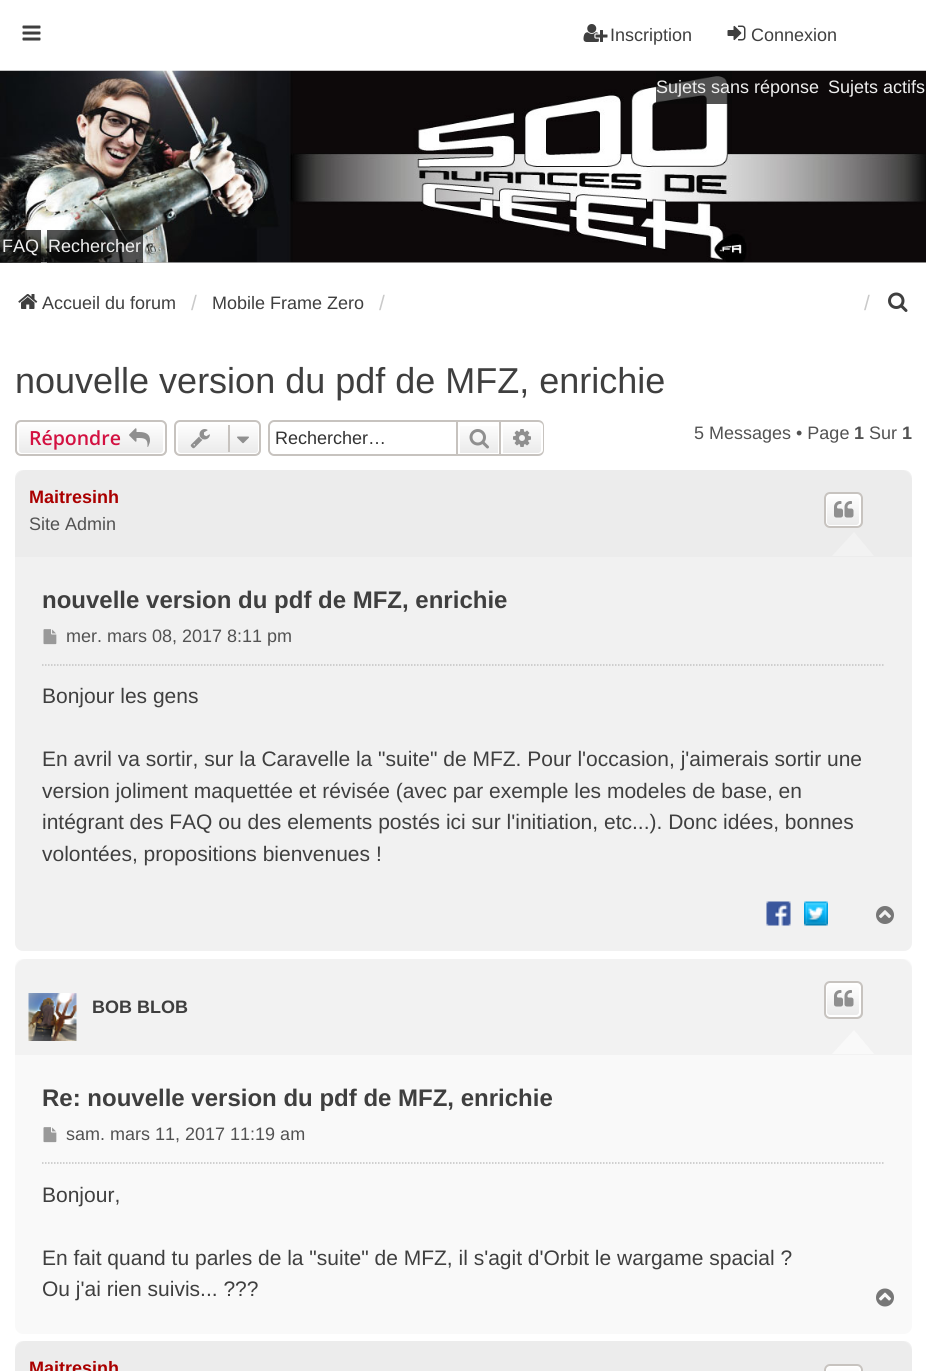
import math
import cairo


def round_path(ctx, x, y, w, h, r):
	ctx.new_sub_path()
	for i, (u, v) in enumerate([(x + w - r, y + h - r), (x + r, y + h - r), (x + r, y + r), (x + w - r, y + r)]):
		ctx.arc(u, v, r, i * math.pi / 2, (i + 1) * math.pi / 2)
	ctx.close_path()

def paste(ctx, path, x, y, w, h):
	ctx.save()
	ctx.set_source_surface(cairo.ImageSurface.create_from_png(path), x, y)
	ctx.rectangle(x, y, w, h)
	ctx.fill()
	ctx.restore()

def draw(ctx):
	ctx.set_source_rgb(1, 1, 1)
	ctx.paint()
	paste(ctx, 'media/1.png', 22, 25, 19, 16)
	paste(ctx, 'media/2.png', 583, 24, 25, 18)
	ctx.select_font_face('Liberation Sans')
	ctx.set_font_size(18)
	ctx.set_source_rgb(0.247, 0.247, 0.247)
	ctx.move_to(610, 41)
	ctx.show_text('Inscription')
	paste(ctx, 'media/3.png', 727, 25, 19, 16)
	ctx.move_to(751, 41)
	ctx.show_text('Connexion')
	ctx.set_source_rgb(0.706, 0.706, 0.706)
	ctx.rectangle(0, 262, 926, 1)
	ctx.fill()
	paste(ctx, 'media/4.png', 0, 70, 926, 193)
	ctx.set_source_rgba(0.039, 0.039, 0.039, 0.7)
	ctx.rectangle(656, 71, 76, 33)
	ctx.fill()
	ctx.set_source_rgb(0.933, 0.933, 0.933)
	ctx.move_to(656, 93)
	ctx.show_text('Sujets sans réponse')
	ctx.move_to(828, 93)
	ctx.show_text('Sujets actifs')
	ctx.set_source_rgba(0.039, 0.039, 0.039, 0.7)
	ctx.rectangle(0, 230, 41, 33)
	ctx.fill()
	ctx.set_source_rgb(0.933, 0.933, 0.933)
	ctx.move_to(2, 252)
	ctx.show_text('FAQ')
	ctx.set_source_rgba(0.039, 0.039, 0.039, 0.7)
	ctx.rectangle(47, 230, 96, 33)
	ctx.fill()
	ctx.set_source_rgb(0.933, 0.933, 0.933)
	ctx.move_to(48, 252)
	ctx.show_text('Rechercher')
	paste(ctx, 'media/5.png', 18, 294, 20, 15)
	ctx.set_source_rgb(0.247, 0.247, 0.247)
	ctx.move_to(42, 309)
	ctx.show_text('Accueil du forum')
	ctx.set_font_size(21)
	ctx.set_source_rgb(0.792, 0.792, 0.792)
	ctx.move_to(191, 310)
	ctx.show_text('/')
	ctx.set_font_size(18)
	ctx.set_source_rgb(0.247, 0.247, 0.247)
	ctx.move_to(212, 309)
	ctx.show_text('Mobile Frame Zero')
	ctx.set_font_size(21)
	ctx.set_source_rgb(0.792, 0.792, 0.792)
	ctx.move_to(379, 310)
	ctx.show_text('/')
	ctx.move_to(864, 310)
	ctx.show_text('/')
	paste(ctx, 'media/6.png', 888, 292, 20, 20)
	ctx.set_font_size(36)
	ctx.set_source_rgb(0.247, 0.247, 0.247)
	ctx.move_to(15, 393)
	ctx.show_text('nouvelle version du pdf de MFZ, enrichie')
	ctx.save()
	round_path(ctx, 15, 420, 152, 36, 6)
	ctx.clip()
	gradient = cairo.LinearGradient(91, 422, 91, 455)
	gradient.add_color_stop_rgba(0, 1, 1, 1, 1)
	gradient.add_color_stop_rgba(1, 0.914, 0.914, 0.914, 1)
	ctx.set_source(gradient)
	ctx.rectangle(15, 422, 152, 33)
	ctx.fill()
	ctx.restore()
	round_path(ctx, 18, 423, 146, 31, 4)
	ctx.set_source_rgb(1, 1, 1)
	ctx.stroke()
	round_path(ctx, 16, 421, 150, 34, 5)
	ctx.set_source_rgb(0.78, 0.765, 0.749)
	ctx.stroke()
	ctx.select_font_face('Open Sans SemiBold')
	ctx.set_font_size(19.5)
	ctx.set_source_rgb(0.827, 0.067, 0.255)
	ctx.move_to(29, 445)
	ctx.show_text('Répondre')
	paste(ctx, 'media/7.png', 129, 428, 21, 19)
	ctx.save()
	round_path(ctx, 174, 420, 87, 36, 6)
	ctx.clip()
	gradient = cairo.LinearGradient(218, 422, 218, 455)
	gradient.add_color_stop_rgba(0, 1, 1, 1, 1)
	gradient.add_color_stop_rgba(1, 0.914, 0.914, 0.914, 1)
	ctx.set_source(gradient)
	ctx.rectangle(174, 422, 87, 33)
	ctx.fill()
	ctx.restore()
	round_path(ctx, 177, 423, 82, 31, 4)
	ctx.set_source_rgb(1, 1, 1)
	ctx.stroke()
	round_path(ctx, 175, 421, 85, 34, 5)
	ctx.set_source_rgb(0.78, 0.765, 0.749)
	ctx.stroke()
	paste(ctx, 'media/8.png', 190, 429, 20, 20)
	ctx.rectangle(228, 425, 2, 27)
	ctx.fill()
	paste(ctx, 'media/9.png', 237, 436, 12, 8)
	ctx.set_fill_rule(cairo.FILL_RULE_EVEN_ODD)
	ctx.new_path()
	ctx.move_to(274, 420)
	ctx.line_to(456, 420)
	ctx.line_to(456, 456)
	ctx.line_to(274, 456)
	ctx.curve_to(271, 456, 268, 453, 268, 450)
	ctx.line_to(268, 426)
	ctx.curve_to(268, 423, 271, 420, 274, 420)
	ctx.close_path()
	ctx.move_to(274, 422)
	ctx.line_to(456, 422)
	ctx.line_to(456, 454)
	ctx.line_to(274, 454)
	ctx.curve_to(272, 454, 270, 452, 270, 450)
	ctx.line_to(270, 426)
	ctx.curve_to(270, 424, 272, 422, 274, 422)
	ctx.close_path()
	ctx.fill()
	ctx.select_font_face('Liberation Sans')
	ctx.set_font_size(18)
	ctx.set_source_rgb(0.2, 0.2, 0.2)
	ctx.move_to(275, 444)
	ctx.show_text('Rechercher…')
	gradient = cairo.LinearGradient(479, 422, 479, 455)
	gradient.add_color_stop_rgba(0, 1, 1, 1, 1)
	gradient.add_color_stop_rgba(1, 0.914, 0.914, 0.914, 1)
	ctx.set_source(gradient)
	ctx.rectangle(460, 426, 38, 27)
	ctx.fill()
	ctx.rectangle(457, 421, 43, 34)
	ctx.set_source_rgb(0.78, 0.765, 0.749)
	ctx.stroke()
	paste(ctx, 'media/10.png', 469, 429, 20, 20)
	gradient = cairo.LinearGradient(522, 422, 522, 455)
	gradient.add_color_stop_rgba(0, 1, 1, 1, 1)
	gradient.add_color_stop_rgba(1, 0.914, 0.914, 0.914, 1)
	ctx.set_source(gradient)
	ctx.new_path()
	ctx.move_to(502, 423)
	ctx.line_to(538, 423)
	ctx.curve_to(540, 423, 542, 425, 542, 427)
	ctx.line_to(542, 450)
	ctx.curve_to(542, 452, 540, 454, 538, 454)
	ctx.line_to(502, 454)
	ctx.close_path()
	ctx.fill_preserve()
	ctx.set_source_rgb(1, 1, 1)
	ctx.stroke()
	ctx.set_source_rgb(0.78, 0.765, 0.749)
	ctx.new_path()
	ctx.move_to(501, 420)
	ctx.line_to(538, 420)
	ctx.curve_to(542, 420, 544, 423, 544, 426)
	ctx.line_to(544, 450)
	ctx.curve_to(544, 453, 542, 456, 538, 456)
	ctx.line_to(501, 456)
	ctx.close_path()
	ctx.move_to(501, 422)
	ctx.line_to(538, 422)
	ctx.curve_to(541, 422, 543, 424, 543, 426)
	ctx.line_to(543, 450)
	ctx.curve_to(543, 452, 541, 454, 538, 454)
	ctx.line_to(501, 454)
	ctx.close_path()
	ctx.fill()
	paste(ctx, 'media/11.png', 513, 429, 18, 18)
	ctx.set_source_rgb(0.322, 0.322, 0.322)
	ctx.move_to(694, 439)
	ctx.show_text('5 Messages • Page')
	ctx.select_font_face('Liberation Sans', cairo.FONT_SLANT_NORMAL, cairo.FONT_WEIGHT_BOLD)
	ctx.move_to(854, 439)
	ctx.show_text('1')
	ctx.select_font_face('Liberation Sans')
	ctx.move_to(869, 439)
	ctx.show_text('Sur')
	ctx.select_font_face('Liberation Sans', cairo.FONT_SLANT_NORMAL, cairo.FONT_WEIGHT_BOLD)
	ctx.move_to(902, 439)
	ctx.show_text('1')
	ctx.set_source_rgb(0.945, 0.945, 0.945)
	round_path(ctx, 15, 470, 897, 481, 8)
	ctx.fill()
	ctx.set_source_rgb(0.925, 0.925, 0.925)
	ctx.new_path()
	ctx.move_to(26, 470)
	ctx.line_to(901, 470)
	ctx.curve_to(907, 470, 912, 475, 912, 481)
	ctx.line_to(912, 557)
	ctx.line_to(15, 557)
	ctx.line_to(15, 481)
	ctx.curve_to(15, 475, 20, 470, 26, 470)
	ctx.close_path()
	ctx.fill()
	ctx.set_source_rgb(0.667, 0, 0)
	ctx.move_to(29, 503)
	ctx.show_text('Maitresinh')
	ctx.select_font_face('Liberation Sans')
	ctx.set_source_rgb(0.322, 0.322, 0.322)
	ctx.move_to(29, 530)
	ctx.show_text('Site Admin')
	ctx.set_source_rgb(0.949, 0.949, 0.949)
	ctx.set_fill_rule(cairo.FILL_RULE_WINDING)
	ctx.new_path()
	ctx.move_to(874, 556)
	ctx.line_to(832, 556)
	ctx.line_to(854, 532)
	ctx.close_path()
	ctx.fill()
	ctx.save()
	round_path(ctx, 824, 492, 39, 36, 6)
	ctx.clip()
	gradient = cairo.LinearGradient(843, 494, 843, 527)
	gradient.add_color_stop_rgba(0, 1, 1, 1, 1)
	gradient.add_color_stop_rgba(1, 0.914, 0.914, 0.914, 1)
	ctx.set_source(gradient)
	ctx.rectangle(824, 494, 39, 33)
	ctx.fill()
	ctx.restore()
	round_path(ctx, 826, 495, 34, 31, 4)
	ctx.set_source_rgb(1, 1, 1)
	ctx.stroke()
	round_path(ctx, 825, 493, 37, 34, 5)
	ctx.set_source_rgb(0.78, 0.765, 0.749)
	ctx.stroke()
	paste(ctx, 'media/12.png', 834, 501, 20, 17)
	ctx.select_font_face('Liberation Sans', cairo.FONT_SLANT_NORMAL, cairo.FONT_WEIGHT_BOLD)
	ctx.set_font_size(24)
	ctx.set_source_rgb(0.247, 0.247, 0.247)
	ctx.move_to(42, 608)
	ctx.show_text('nouvelle version du pdf de MFZ, enrichie')
	ctx.new_path()
	ctx.move_to(42, 665)
	ctx.line_to(885, 665)
	ctx.set_source_rgb(0.761, 0.761, 0.761)
	ctx.set_line_width(1.5)
	ctx.set_dash([1.5, 1.5])
	ctx.stroke()
	paste(ctx, 'media/13.png', 43, 629, 14, 16)
	ctx.select_font_face('Liberation Sans')
	ctx.set_font_size(18)
	ctx.set_source_rgb(0.322, 0.322, 0.322)
	ctx.move_to(66, 642)
	ctx.show_text('mer. mars 08, 2017 8:11 pm')
	ctx.set_font_size(21)
	ctx.set_source_rgb(0.247, 0.247, 0.247)
	for x, y, s in [
		(42, 703, 'Bonjour les gens'),
		(42, 766, 'En avril va sortir, sur la Caravelle la "suite" de MFZ. Pour l\'occasion, j\'aimerais sortir une'),
		(42, 798, 'version joliment maquettée et révisée (avec par exemple les modeles de base, en'),
		(42, 829, 'intégrant des FAQ ou des elements postés ici sur l\'initiation, etc...). Donc idées, bonnes'),
		(42, 861, 'volontées, propositions bienvenues !'),
	]:
		ctx.move_to(x, y)
		ctx.show_text(s)
	paste(ctx, 'media/14.png', 766, 901, 25, 25)
	paste(ctx, 'media/15.png', 804, 901, 24, 25)
	paste(ctx, 'media/16.png', 876, 906, 18, 18)
	ctx.set_source_rgb(0.973, 0.973, 0.973)
	round_path(ctx, 15, 959, 897, 375, 8)
	ctx.fill()
	ctx.set_source_rgb(0.949, 0.949, 0.949)
	ctx.new_path()
	ctx.move_to(26, 959)
	ctx.line_to(901, 959)
	ctx.curve_to(907, 959, 912, 964, 912, 970)
	ctx.line_to(912, 1055)
	ctx.line_to(15, 1055)
	ctx.line_to(15, 970)
	ctx.curve_to(15, 964, 20, 959, 26, 959)
	ctx.close_path()
	ctx.fill()
	paste(ctx, 'media/17.png', 28, 993, 49, 48)
	ctx.select_font_face('Liberation Sans', cairo.FONT_SLANT_NORMAL, cairo.FONT_WEIGHT_BOLD)
	ctx.set_font_size(18)
	ctx.set_source_rgb(0.247, 0.247, 0.247)
	ctx.move_to(92, 1013)
	ctx.show_text('BOB BLOB')
	ctx.set_source_rgb(0.973, 0.973, 0.973)
	ctx.new_path()
	ctx.move_to(874, 1054)
	ctx.line_to(832, 1054)
	ctx.line_to(854, 1030)
	ctx.close_path()
	ctx.fill()
	ctx.save()
	round_path(ctx, 824, 981, 39, 38, 6)
	ctx.clip()
	gradient = cairo.LinearGradient(843, 983, 843, 1017)
	gradient.add_color_stop_rgba(0, 1, 1, 1, 1)
	gradient.add_color_stop_rgba(1, 0.914, 0.914, 0.914, 1)
	ctx.set_source(gradient)
	ctx.rectangle(824, 983, 39, 34)
	ctx.fill()
	ctx.restore()
	round_path(ctx, 826, 984, 34, 32, 4)
	ctx.set_source_rgb(1, 1, 1)
	ctx.set_line_width(2)
	ctx.set_dash([])
	ctx.stroke()
	round_path(ctx, 825, 982, 37, 36, 5)
	ctx.set_source_rgb(0.78, 0.765, 0.749)
	ctx.stroke()
	paste(ctx, 'media/18.png', 834, 990, 20, 17)
	ctx.set_font_size(24)
	ctx.set_source_rgb(0.247, 0.247, 0.247)
	ctx.move_to(42, 1106)
	ctx.show_text('Re: nouvelle version du pdf de MFZ, enrichie')
	ctx.new_path()
	ctx.move_to(42, 1163)
	ctx.line_to(885, 1163)
	ctx.set_source_rgb(0.761, 0.761, 0.761)
	ctx.set_line_width(1.5)
	ctx.set_dash([1.5, 1.5])
	ctx.stroke()
	paste(ctx, 'media/19.png', 43, 1127, 14, 16)
	ctx.select_font_face('Liberation Sans')
	ctx.set_font_size(18)
	ctx.set_source_rgb(0.322, 0.322, 0.322)
	ctx.move_to(66, 1140)
	ctx.show_text('sam. mars 11, 2017 11:19 am')
	ctx.set_font_size(21)
	ctx.set_source_rgb(0.247, 0.247, 0.247)
	for x, y, s in [
		(42, 1202, 'Bonjour,'),
		(42, 1265, 'En fait quand tu parles de la "suite" de MFZ, il s\'agit d\'Orbit le wargame spacial ?'),
		(42, 1296, 'Ou j\'ai rien suivis... ???'),
	]:
		ctx.move_to(x, y)
		ctx.show_text(s)
	paste(ctx, 'media/20.png', 876, 1288, 18, 19)
	ctx.set_source_rgb(0.945, 0.945, 0.945)
	round_path(ctx, 15, 1341, 897, 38, 8)
	ctx.fill()
	ctx.set_source_rgb(0.925, 0.925, 0.925)
	ctx.new_path()
	ctx.move_to(26, 1341)
	ctx.line_to(901, 1341)
	ctx.curve_to(907, 1341, 912, 1346, 912, 1352)
	ctx.line_to(912, 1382)
	ctx.line_to(15, 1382)
	ctx.line_to(15, 1352)
	ctx.curve_to(15, 1346, 20, 1341, 26, 1341)
	ctx.close_path()
	ctx.fill()
	ctx.select_font_face('Liberation Sans', cairo.FONT_SLANT_NORMAL, cairo.FONT_WEIGHT_BOLD)
	ctx.set_font_size(18)
	ctx.set_source_rgb(0.667, 0, 0)
	ctx.move_to(29, 1374)
	ctx.show_text('Maitresinh')
	ctx.save()
	round_path(ctx, 824, 1364, 39, 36, 6)
	ctx.clip()
	gradient = cairo.LinearGradient(843, 1365, 843, 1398)
	gradient.add_color_stop_rgba(0, 1, 1, 1, 1)
	gradient.add_color_stop_rgba(1, 0.914, 0.914, 0.914, 1)
	ctx.set_source(gradient)
	ctx.rectangle(824, 1365, 39, 6)
	ctx.fill()
	ctx.restore()
	round_path(ctx, 826, 1366, 34, 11, 4)
	ctx.set_source_rgb(1, 1, 1)
	ctx.set_line_width(2)
	ctx.set_dash([])
	ctx.stroke()
	round_path(ctx, 825, 1365, 37, 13, 5)
	ctx.set_source_rgb(0.78, 0.765, 0.749)
	ctx.stroke()


surface = cairo.ImageSurface(cairo.FORMAT_RGB24, 926, 1371)
ctx = cairo.Context(surface)
options = cairo.FontOptions()
options.set_hint_metrics(cairo.HINT_METRICS_OFF)
options.set_hint_style(cairo.HINT_STYLE_NONE)
ctx.set_font_options(options)
ctx.set_miter_limit(4)
draw(ctx)
surface.write_to_png('image.png')
